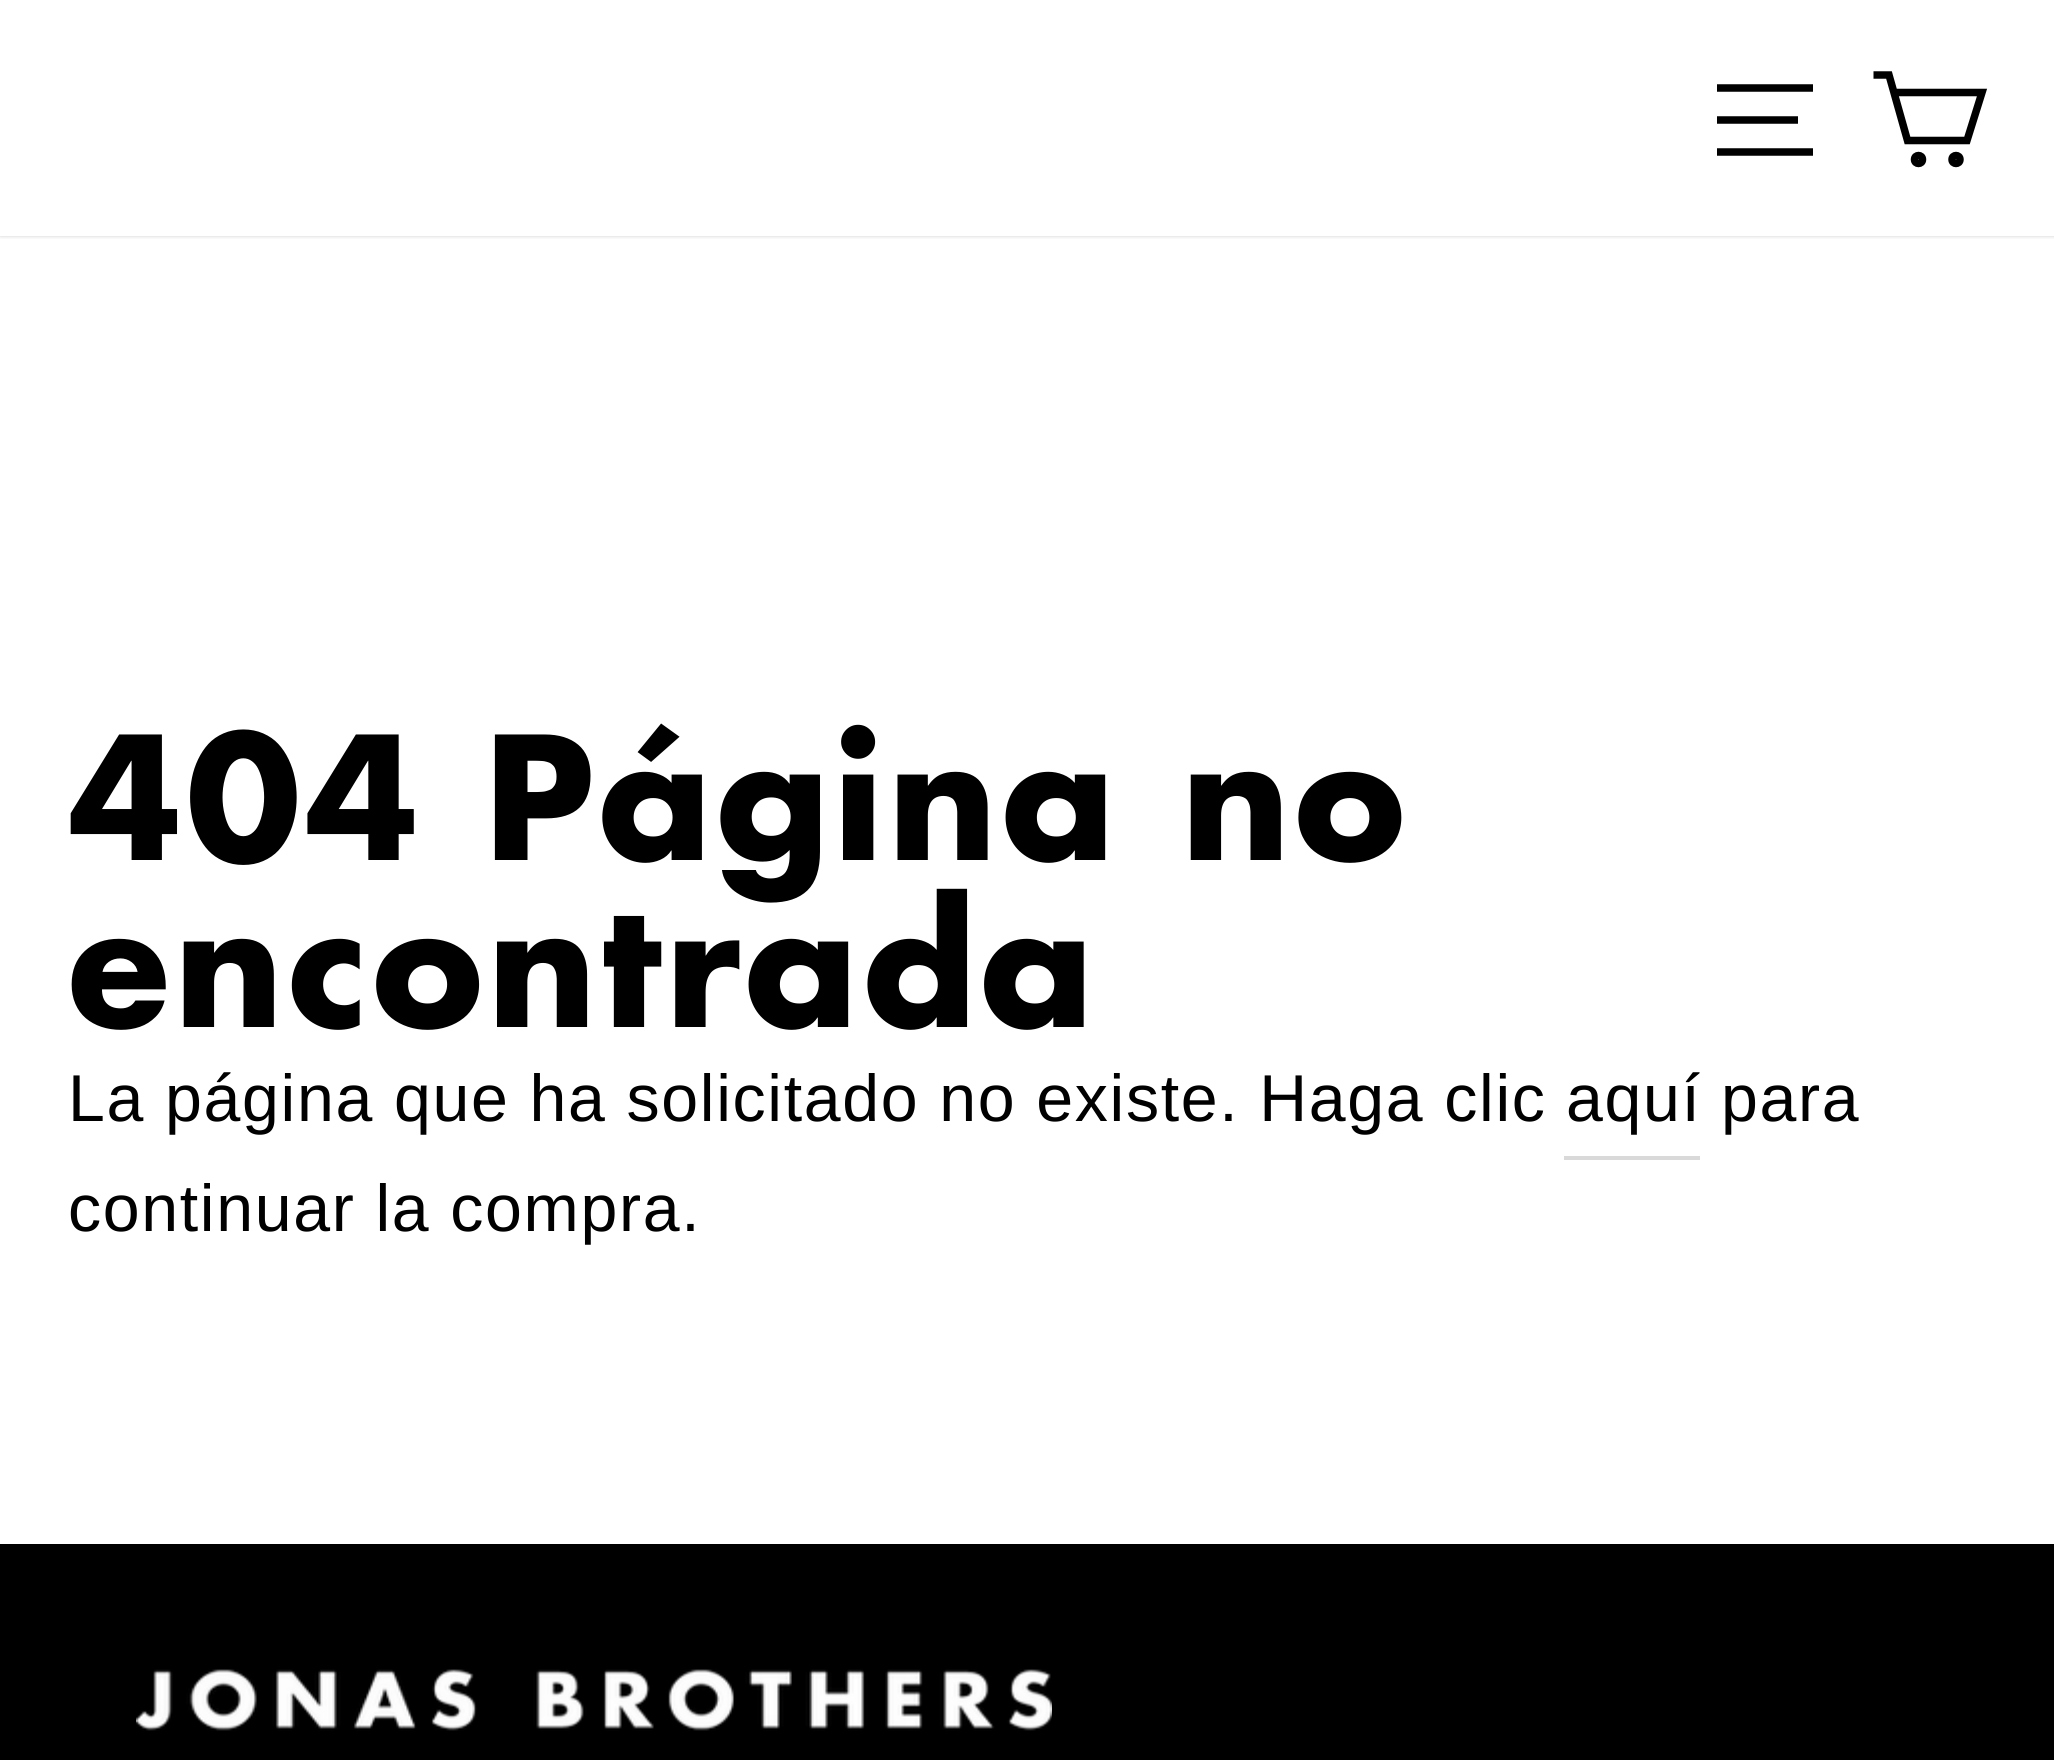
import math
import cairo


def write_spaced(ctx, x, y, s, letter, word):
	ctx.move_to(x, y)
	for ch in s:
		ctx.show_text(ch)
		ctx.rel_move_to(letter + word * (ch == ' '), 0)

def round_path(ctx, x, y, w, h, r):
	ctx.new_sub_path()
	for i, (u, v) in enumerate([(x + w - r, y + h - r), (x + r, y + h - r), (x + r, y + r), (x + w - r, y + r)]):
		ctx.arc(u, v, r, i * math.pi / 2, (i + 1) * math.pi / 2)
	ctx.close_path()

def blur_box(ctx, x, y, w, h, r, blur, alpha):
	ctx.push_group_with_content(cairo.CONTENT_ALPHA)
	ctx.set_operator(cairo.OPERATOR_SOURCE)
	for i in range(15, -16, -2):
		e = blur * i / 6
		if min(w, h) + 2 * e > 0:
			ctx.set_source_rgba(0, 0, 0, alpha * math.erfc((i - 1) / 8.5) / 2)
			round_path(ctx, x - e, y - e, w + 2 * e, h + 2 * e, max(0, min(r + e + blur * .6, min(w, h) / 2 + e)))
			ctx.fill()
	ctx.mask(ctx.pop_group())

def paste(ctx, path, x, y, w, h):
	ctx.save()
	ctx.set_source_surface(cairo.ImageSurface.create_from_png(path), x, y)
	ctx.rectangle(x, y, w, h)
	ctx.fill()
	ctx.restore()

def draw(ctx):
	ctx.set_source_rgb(1, 1, 1)
	ctx.paint()
	ctx.save()
	ctx.rectangle(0, 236, 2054, 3)
	ctx.clip()
	ctx.set_source_rgb(0, 0, 0)
	blur_box(ctx, 0, 0, 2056, 236, 0, 2, 0.2)
	ctx.restore()
	ctx.new_path()
	ctx.move_to(1717, 88)
	ctx.line_to(1813, 88)
	ctx.move_to(1717, 120)
	ctx.line_to(1798, 120)
	ctx.move_to(1717, 152)
	ctx.line_to(1813, 152)
	ctx.set_source_rgb(0, 0, 0)
	ctx.set_line_width(7.5)
	ctx.stroke()
	ctx.new_path()
	ctx.move_to(1894, 92.5)
	ctx.line_to(1982, 92.5)
	ctx.line_to(1967, 140.5)
	ctx.line_to(1907.5, 140.5)
	ctx.line_to(1889, 75)
	ctx.line_to(1873.5, 75)
	ctx.stroke()
	ctx.arc(1918.5, 159.5, 4, 0, 2 * math.pi)
	ctx.stroke()
	ctx.arc(1956, 159.5, 4, 0, 2 * math.pi)
	ctx.stroke()
	ctx.select_font_face('Futura', cairo.FONT_SLANT_NORMAL, cairo.FONT_WEIGHT_BOLD)
	ctx.set_font_size(166.5)
	write_spaced(ctx, 68, 860, '404 Página no', 4.2, 0)
	write_spaced(ctx, 68, 1027, 'encontrada', 4.2, 0)
	ctx.select_font_face('Arimo')
	ctx.set_font_size(66.25)
	write_spaced(ctx, 68, 1121, 'La página que ha solicitado no existe. Haga clic', 1.65, 0)
	ctx.set_source_rgb(0.851, 0.851, 0.851)
	ctx.rectangle(1564, 1156, 136, 4)
	ctx.fill()
	ctx.set_source_rgb(0, 0, 0)
	for x, y, s in [
		(1566, 1121, 'aquí'),
		(1721, 1121, 'para'),
		(68, 1231, 'continuar la compra.'),
	]:
		write_spaced(ctx, x, y, s, 1.65, 0)
	ctx.rectangle(0, 1544, 2054, 216)
	ctx.fill()
	paste(ctx, 'media/1.png', 136, 1669, 916, 62)


surface = cairo.ImageSurface(cairo.FORMAT_RGB24, 2054, 1760)
ctx = cairo.Context(surface)
options = cairo.FontOptions()
options.set_hint_metrics(cairo.HINT_METRICS_OFF)
options.set_hint_style(cairo.HINT_STYLE_NONE)
ctx.set_font_options(options)
ctx.set_miter_limit(4)
draw(ctx)
surface.write_to_png('image.png')
